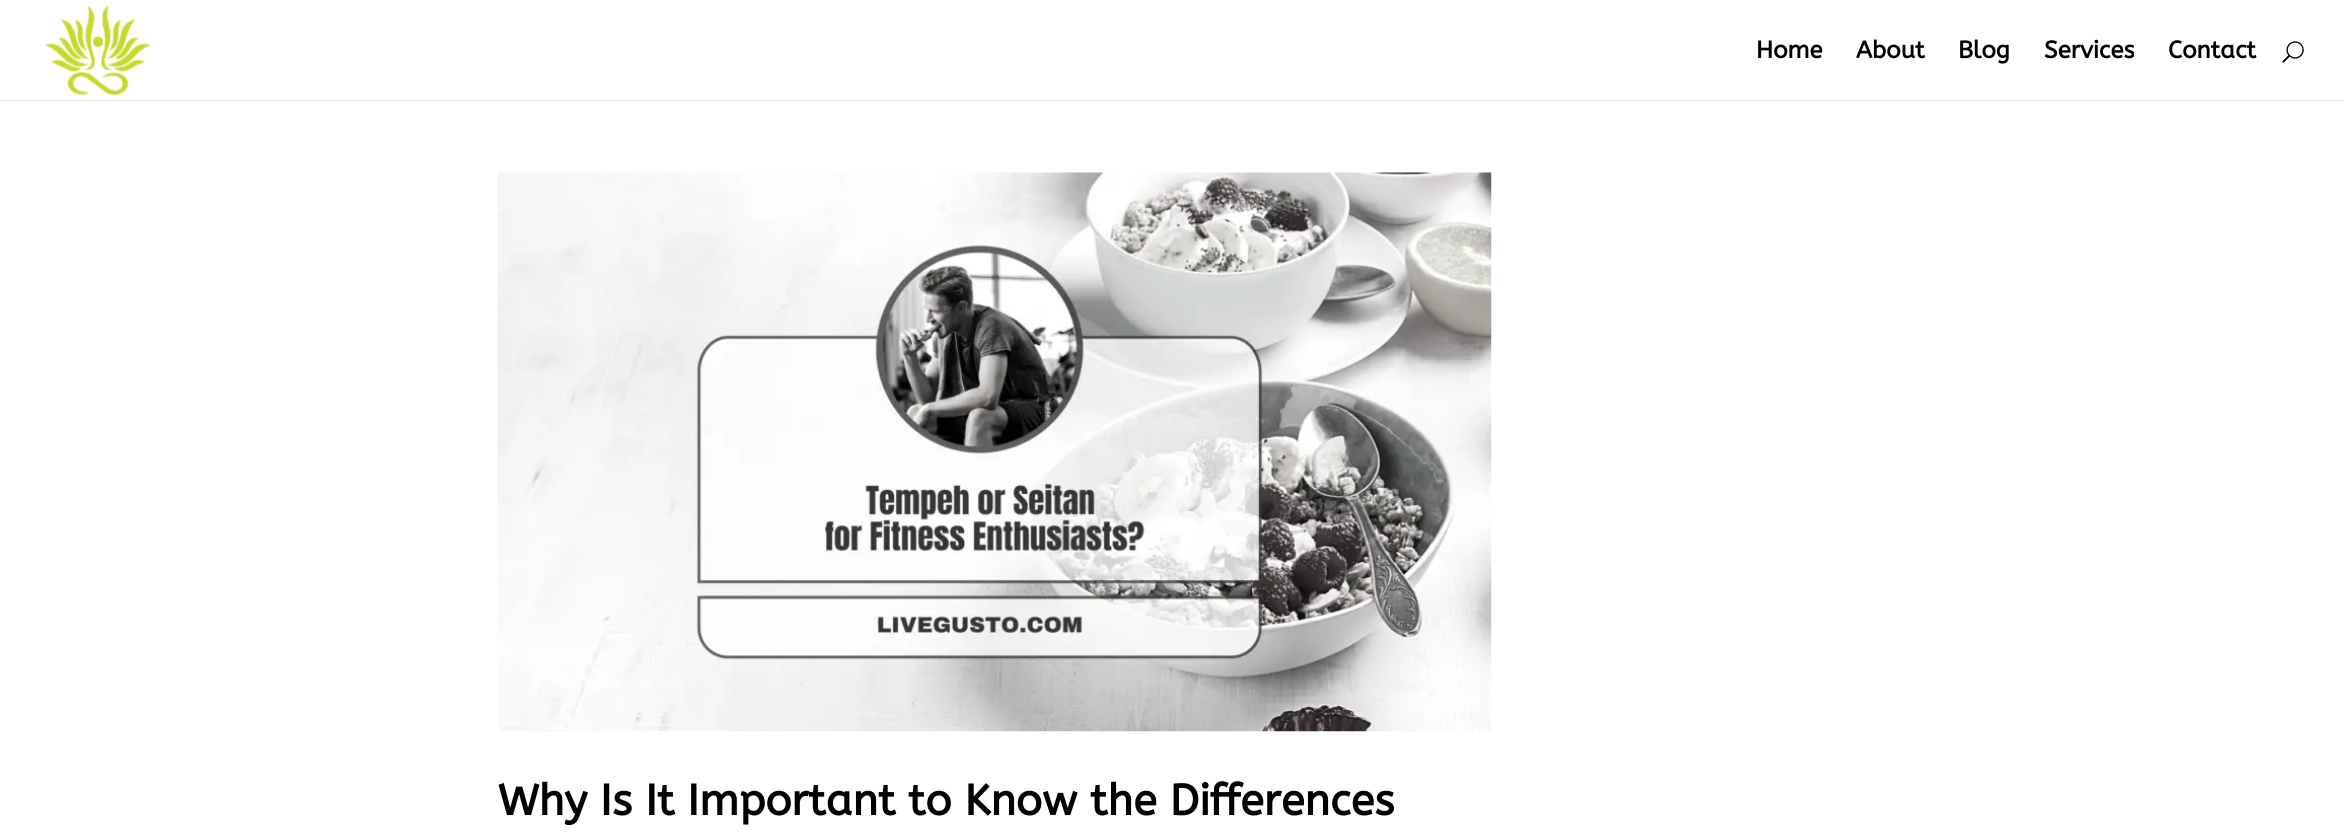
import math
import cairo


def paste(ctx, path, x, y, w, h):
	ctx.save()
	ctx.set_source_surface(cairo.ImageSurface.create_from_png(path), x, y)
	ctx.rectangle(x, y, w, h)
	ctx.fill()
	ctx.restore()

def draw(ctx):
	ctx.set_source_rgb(1, 1, 1)
	ctx.paint()
	ctx.set_source_rgb(0.902, 0.902, 0.902)
	ctx.rectangle(0, 100, 2344, 1)
	ctx.fill()
	paste(ctx, 'media/1.png', 44, 5, 107, 91)
	ctx.select_font_face('ABeeZee', cairo.FONT_SLANT_NORMAL, cairo.FONT_WEIGHT_BOLD)
	ctx.set_font_size(24)
	ctx.set_source_rgb(0, 0, 0)
	for x, y, s in [
		(1756, 58, 'Home'),
		(1856, 58, 'About'),
		(1958, 58, 'Blog'),
		(2044, 58, 'Services'),
		(2168, 58, 'Contact'),
	]:
		ctx.move_to(x, y)
		ctx.show_text(s)
	paste(ctx, 'media/2.png', 2282, 41, 22, 22)
	paste(ctx, 'media/3.png', 497, 172, 995, 560)
	ctx.set_font_size(43.3)
	ctx.move_to(498, 815)
	ctx.show_text('Why Is It Important to Know the Differences')


surface = cairo.ImageSurface(cairo.FORMAT_RGB24, 2344, 832)
ctx = cairo.Context(surface)
options = cairo.FontOptions()
options.set_hint_metrics(cairo.HINT_METRICS_OFF)
options.set_hint_style(cairo.HINT_STYLE_NONE)
ctx.set_font_options(options)
ctx.set_miter_limit(4)
draw(ctx)
surface.write_to_png('image.png')
